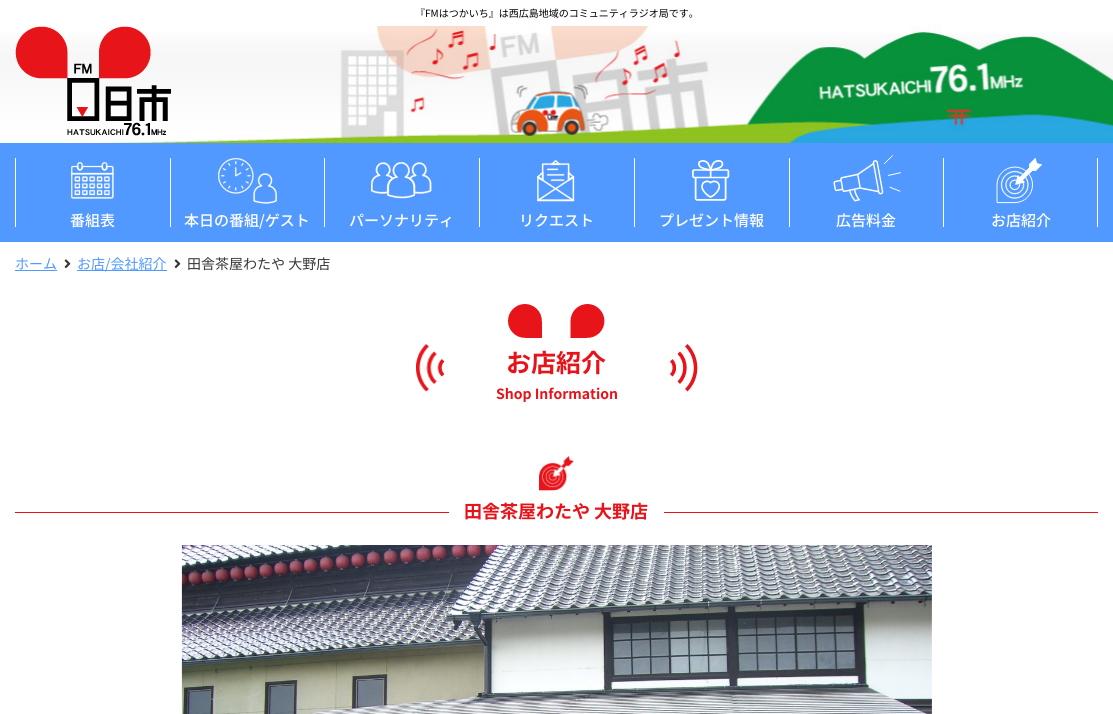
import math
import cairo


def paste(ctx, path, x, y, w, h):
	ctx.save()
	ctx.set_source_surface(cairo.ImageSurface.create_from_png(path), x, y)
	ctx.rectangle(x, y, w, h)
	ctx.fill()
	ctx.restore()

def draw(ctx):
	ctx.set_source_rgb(1, 1, 1)
	ctx.paint()
	ctx.select_font_face('Noto Sans JP')
	ctx.set_font_size(10)
	ctx.set_source_rgb(0, 0, 0)
	ctx.move_to(415, 17)
	ctx.show_text('『FMはつかいち』は西広島地域のコミュニティラジオ局です。')
	paste(ctx, 'media/1.png', 0, 26, 1113, 117)
	paste(ctx, 'media/2.png', 15, 26, 156, 110)
	ctx.set_source_rgb(0.318, 0.596, 1)
	ctx.rectangle(0, 143, 1113, 99)
	ctx.fill()
	ctx.set_source_rgb(1, 1, 1)
	ctx.rectangle(15, 158, 1, 69)
	ctx.fill()
	paste(ctx, 'media/3.png', 71, 162, 43, 37)
	ctx.select_font_face('Noto Sans JP Medium')
	ctx.set_font_size(15)
	ctx.move_to(70, 226)
	ctx.show_text('番組表')
	ctx.rectangle(170, 158, 1, 69)
	ctx.fill()
	paste(ctx, 'media/4.png', 218, 158, 59, 46)
	ctx.move_to(184, 226)
	ctx.show_text('本日の番組/ゲスト')
	ctx.rectangle(324, 158, 1, 69)
	ctx.fill()
	paste(ctx, 'media/5.png', 371, 162, 61, 37)
	ctx.move_to(349, 226)
	ctx.show_text('パーソナリティ')
	ctx.rectangle(479, 158, 1, 69)
	ctx.fill()
	paste(ctx, 'media/6.png', 537, 160, 38, 42)
	ctx.move_to(519, 226)
	ctx.show_text('リクエスト')
	ctx.rectangle(634, 158, 1, 69)
	ctx.fill()
	paste(ctx, 'media/7.png', 692, 160, 38, 41)
	ctx.move_to(659, 226)
	ctx.show_text('プレゼント情報')
	ctx.rectangle(789, 158, 1, 69)
	ctx.fill()
	paste(ctx, 'media/8.png', 833, 155, 68, 47)
	ctx.move_to(836, 226)
	ctx.show_text('広告料金')
	ctx.rectangle(943, 158, 1, 69)
	ctx.fill()
	paste(ctx, 'media/9.png', 996, 158, 46, 46)
	ctx.move_to(991, 226)
	ctx.show_text('お店紹介')
	ctx.rectangle(1097, 158, 1, 69)
	ctx.fill()
	ctx.select_font_face('Noto Sans JP')
	ctx.set_font_size(14)
	ctx.set_source_rgb(0.318, 0.596, 1)
	ctx.move_to(15, 269)
	ctx.show_text('ホーム')
	ctx.rectangle(15, 270, 42, 1)
	ctx.fill()
	paste(ctx, 'media/10.png', 64, 259, 7, 10)
	ctx.rectangle(77, 270, 90, 1)
	ctx.fill()
	ctx.move_to(77, 269)
	ctx.show_text('お店/会社紹介')
	paste(ctx, 'media/10.png', 174, 259, 7, 10)
	ctx.set_source_rgb(0.22, 0.212, 0.212)
	ctx.move_to(187, 269)
	ctx.show_text('田舎茶屋わたや 大野店')
	paste(ctx, 'media/11.png', 508, 304, 97, 34)
	paste(ctx, 'media/12.png', 416, 344, 282, 48)
	ctx.select_font_face('Noto Sans JP', cairo.FONT_SLANT_NORMAL, cairo.FONT_WEIGHT_BOLD)
	ctx.set_font_size(25)
	ctx.set_source_rgb(0.906, 0.078, 0.102)
	ctx.move_to(506, 372)
	ctx.show_text('お店紹介')
	ctx.set_font_size(14)
	ctx.move_to(496, 399)
	ctx.show_text('Shop Information')
	paste(ctx, 'media/13.png', 539, 456, 35, 35)
	ctx.rectangle(15, 512, 1083, 1)
	ctx.fill()
	ctx.set_source_rgb(1, 1, 1)
	ctx.rectangle(449, 512, 215, 1)
	ctx.fill()
	ctx.set_font_size(18)
	ctx.set_source_rgb(0.906, 0.078, 0.102)
	ctx.move_to(464, 518)
	ctx.show_text('田舎茶屋わたや 大野店')
	paste(ctx, 'media/14.png', 181, 545, 751, 169)


surface = cairo.ImageSurface(cairo.FORMAT_RGB24, 1113, 714)
ctx = cairo.Context(surface)
options = cairo.FontOptions()
options.set_hint_metrics(cairo.HINT_METRICS_OFF)
options.set_hint_style(cairo.HINT_STYLE_NONE)
ctx.set_font_options(options)
ctx.set_miter_limit(4)
draw(ctx)
surface.write_to_png('image.png')
